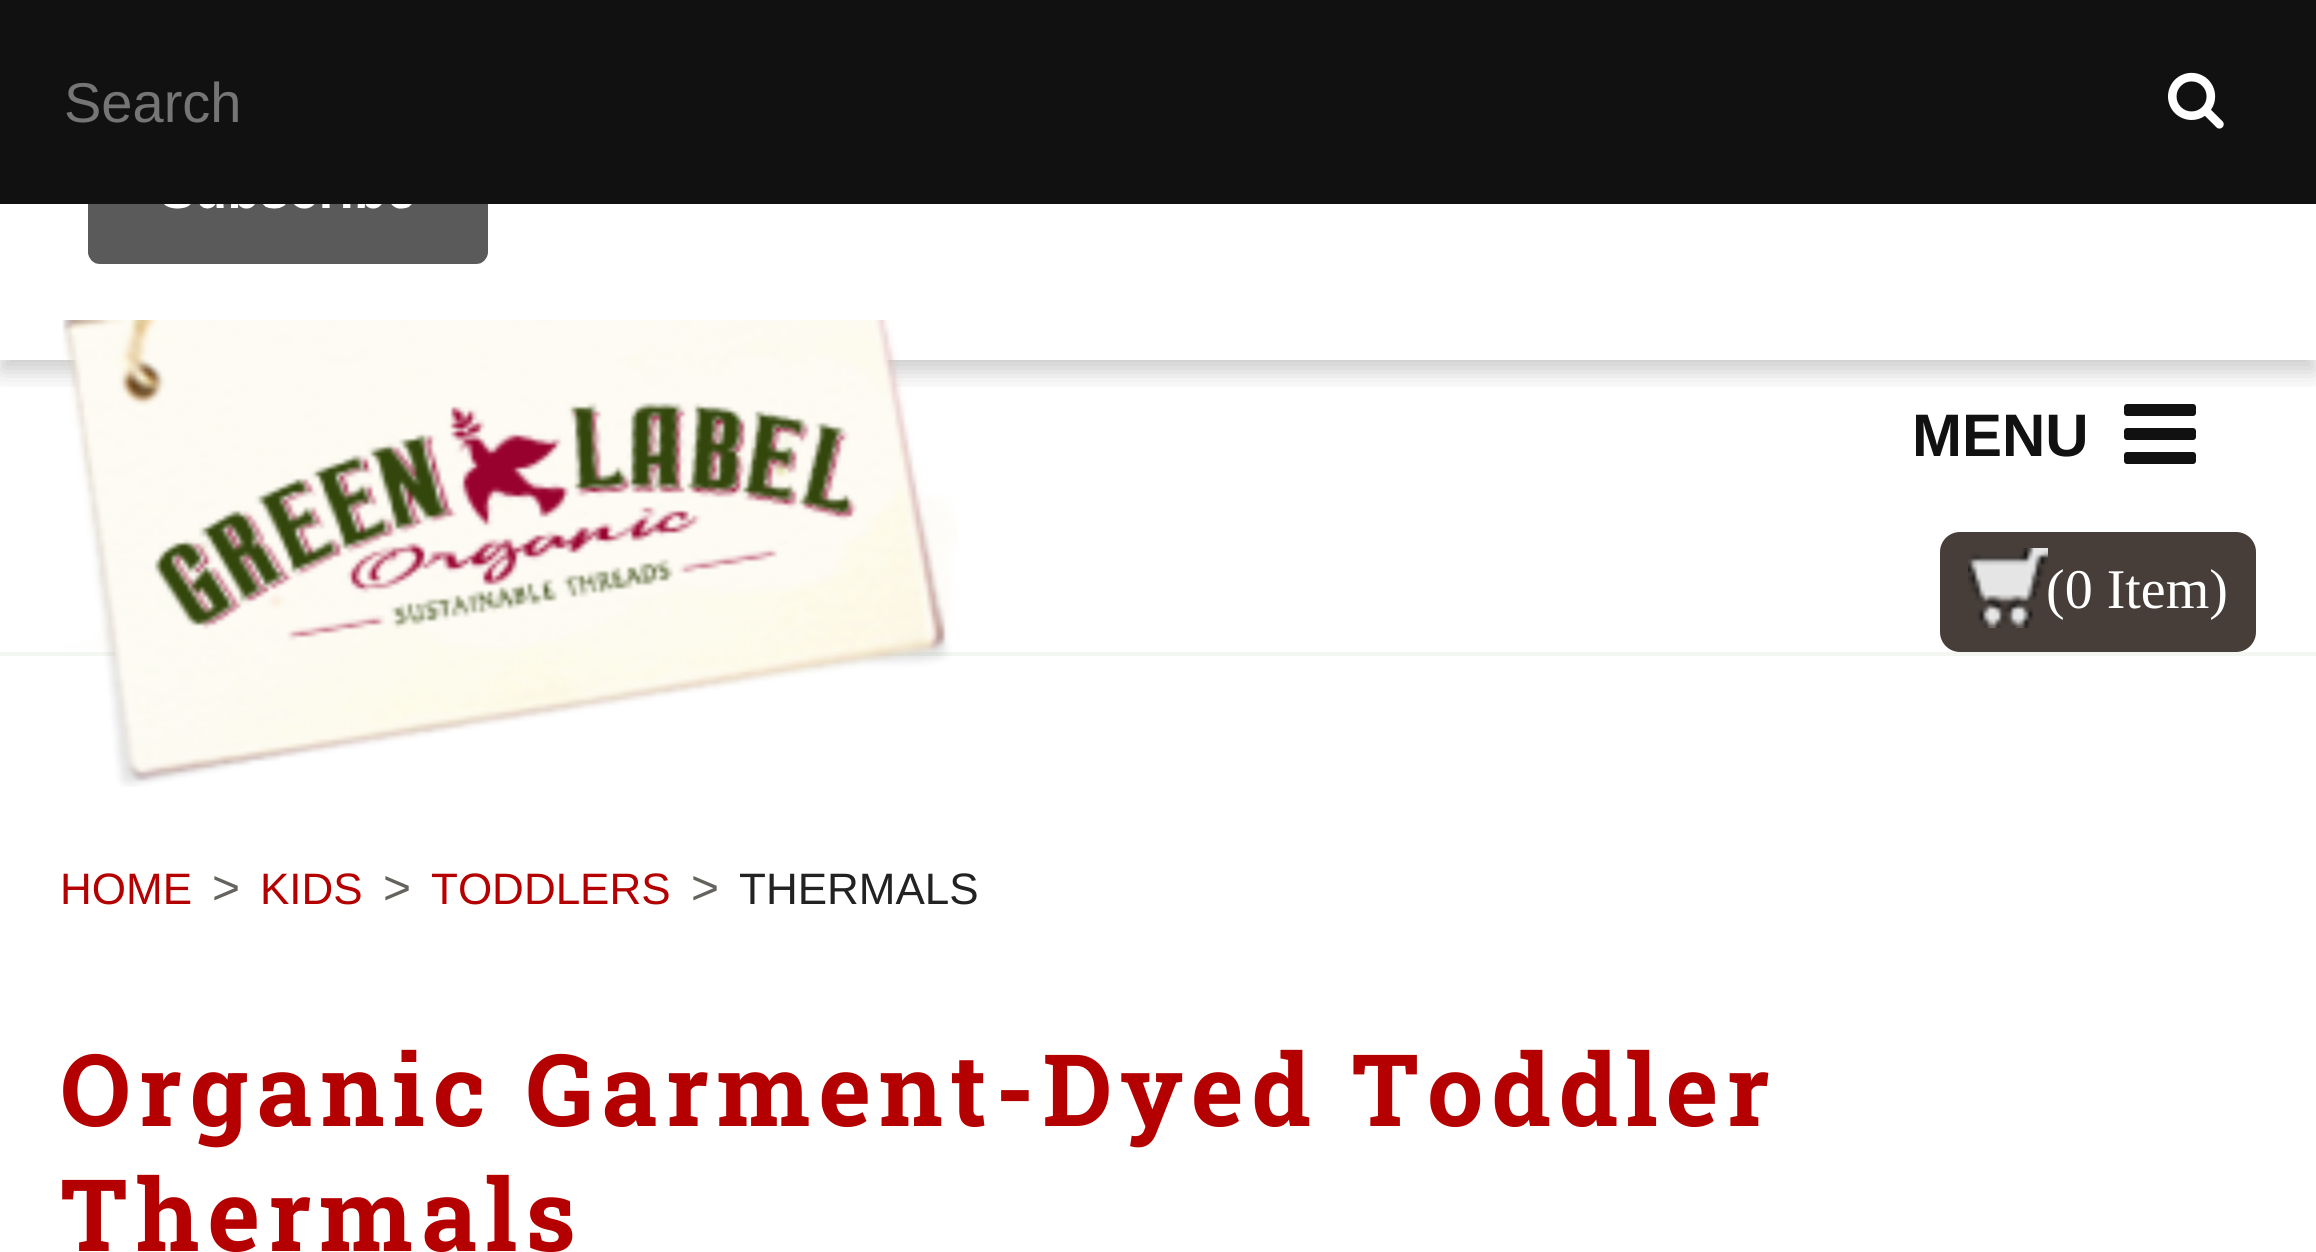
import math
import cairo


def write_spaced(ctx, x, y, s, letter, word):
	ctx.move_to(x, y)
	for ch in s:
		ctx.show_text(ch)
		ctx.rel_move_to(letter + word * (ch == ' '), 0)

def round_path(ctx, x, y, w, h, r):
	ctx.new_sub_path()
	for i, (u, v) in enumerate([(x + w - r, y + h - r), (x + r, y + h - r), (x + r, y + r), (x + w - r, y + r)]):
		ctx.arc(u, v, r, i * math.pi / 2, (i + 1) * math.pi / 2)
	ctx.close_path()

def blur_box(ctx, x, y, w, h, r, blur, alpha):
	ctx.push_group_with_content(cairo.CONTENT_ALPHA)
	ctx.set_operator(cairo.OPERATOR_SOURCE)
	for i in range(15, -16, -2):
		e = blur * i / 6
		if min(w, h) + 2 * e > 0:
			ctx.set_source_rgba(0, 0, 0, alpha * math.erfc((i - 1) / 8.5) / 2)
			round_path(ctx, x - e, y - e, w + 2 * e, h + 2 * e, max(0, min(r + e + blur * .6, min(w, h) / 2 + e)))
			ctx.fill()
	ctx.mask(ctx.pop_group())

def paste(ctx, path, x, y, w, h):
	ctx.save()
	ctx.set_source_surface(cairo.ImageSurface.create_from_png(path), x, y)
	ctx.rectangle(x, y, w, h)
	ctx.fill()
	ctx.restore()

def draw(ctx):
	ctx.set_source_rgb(1, 1, 1)
	ctx.paint()
	ctx.save()
	ctx.rectangle(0, 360, 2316, 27)
	ctx.clip()
	ctx.set_source_rgb(0, 0, 0)
	blur_box(ctx, 0, 12, 2316, 360, 0, 12, 0.2)
	ctx.restore()
	paste(ctx, 'media/1.png', 88, 204, 400, 60)
	ctx.set_source_rgb(0.067, 0.067, 0.067)
	ctx.rectangle(0, 0, 2316, 204)
	ctx.fill()
	ctx.select_font_face('Liberation Sans')
	ctx.set_font_size(56)
	ctx.set_source_rgb(0.459, 0.459, 0.459)
	ctx.move_to(64, 122)
	ctx.show_text('Search')
	paste(ctx, 'media/2.png', 2168, 72, 56, 57)
	ctx.set_source_rgb(0.278, 0.243, 0.224)
	round_path(ctx, 1940, 532, 316, 120, 20)
	ctx.fill()
	paste(ctx, 'media/3.png', 1968, 548, 80, 80)
	ctx.select_font_face('Liberation Serif')
	ctx.set_source_rgb(1, 1, 1)
	ctx.move_to(2046, 608)
	ctx.show_text('(0 Item)')
	ctx.set_source_rgb(0.957, 0.965, 0.945)
	ctx.rectangle(0, 652, 2316, 4)
	ctx.fill()
	paste(ctx, 'media/4.png', 62, 320, 896, 467)
	ctx.select_font_face('Liberation Sans', cairo.FONT_SLANT_NORMAL, cairo.FONT_WEIGHT_BOLD)
	ctx.set_font_size(60)
	ctx.set_source_rgb(0.067, 0.067, 0.067)
	ctx.move_to(1912, 456)
	ctx.show_text('MENU')
	paste(ctx, 'media/5.png', 2124, 404, 72, 60)
	ctx.select_font_face('Liberation Sans')
	ctx.set_font_size(44)
	ctx.set_source_rgb(0.706, 0, 0)
	ctx.move_to(60, 904)
	ctx.show_text('HOME')
	ctx.set_font_size(48)
	ctx.set_source_rgb(0.4, 0.388, 0.369)
	ctx.move_to(212, 904)
	ctx.show_text('>')
	ctx.set_font_size(44)
	ctx.set_source_rgb(0.706, 0, 0)
	ctx.move_to(260, 904)
	ctx.show_text('KIDS')
	ctx.set_font_size(48)
	ctx.set_source_rgb(0.4, 0.388, 0.369)
	ctx.move_to(383, 904)
	ctx.show_text('>')
	ctx.set_font_size(44)
	ctx.set_source_rgb(0.706, 0, 0)
	ctx.move_to(431, 904)
	ctx.show_text('TODDLERS')
	ctx.set_font_size(48)
	ctx.set_source_rgb(0.4, 0.388, 0.369)
	ctx.move_to(691, 904)
	ctx.show_text('>')
	ctx.set_font_size(44)
	ctx.set_source_rgb(0.133, 0.133, 0.133)
	ctx.move_to(739, 904)
	ctx.show_text('THERMALS')
	ctx.select_font_face('Roboto Slab', cairo.FONT_SLANT_NORMAL, cairo.FONT_WEIGHT_BOLD)
	ctx.set_font_size(100)
	ctx.set_source_rgb(0.706, 0, 0)
	write_spaced(ctx, 60, 1126, 'Organic Garment-Dyed Toddler', 8, 0)
	write_spaced(ctx, 60, 1251, 'Thermals', 8, 0)


surface = cairo.ImageSurface(cairo.FORMAT_RGB24, 2316, 1252)
ctx = cairo.Context(surface)
options = cairo.FontOptions()
options.set_hint_metrics(cairo.HINT_METRICS_OFF)
options.set_hint_style(cairo.HINT_STYLE_NONE)
ctx.set_font_options(options)
ctx.set_miter_limit(4)
draw(ctx)
surface.write_to_png('image.png')
